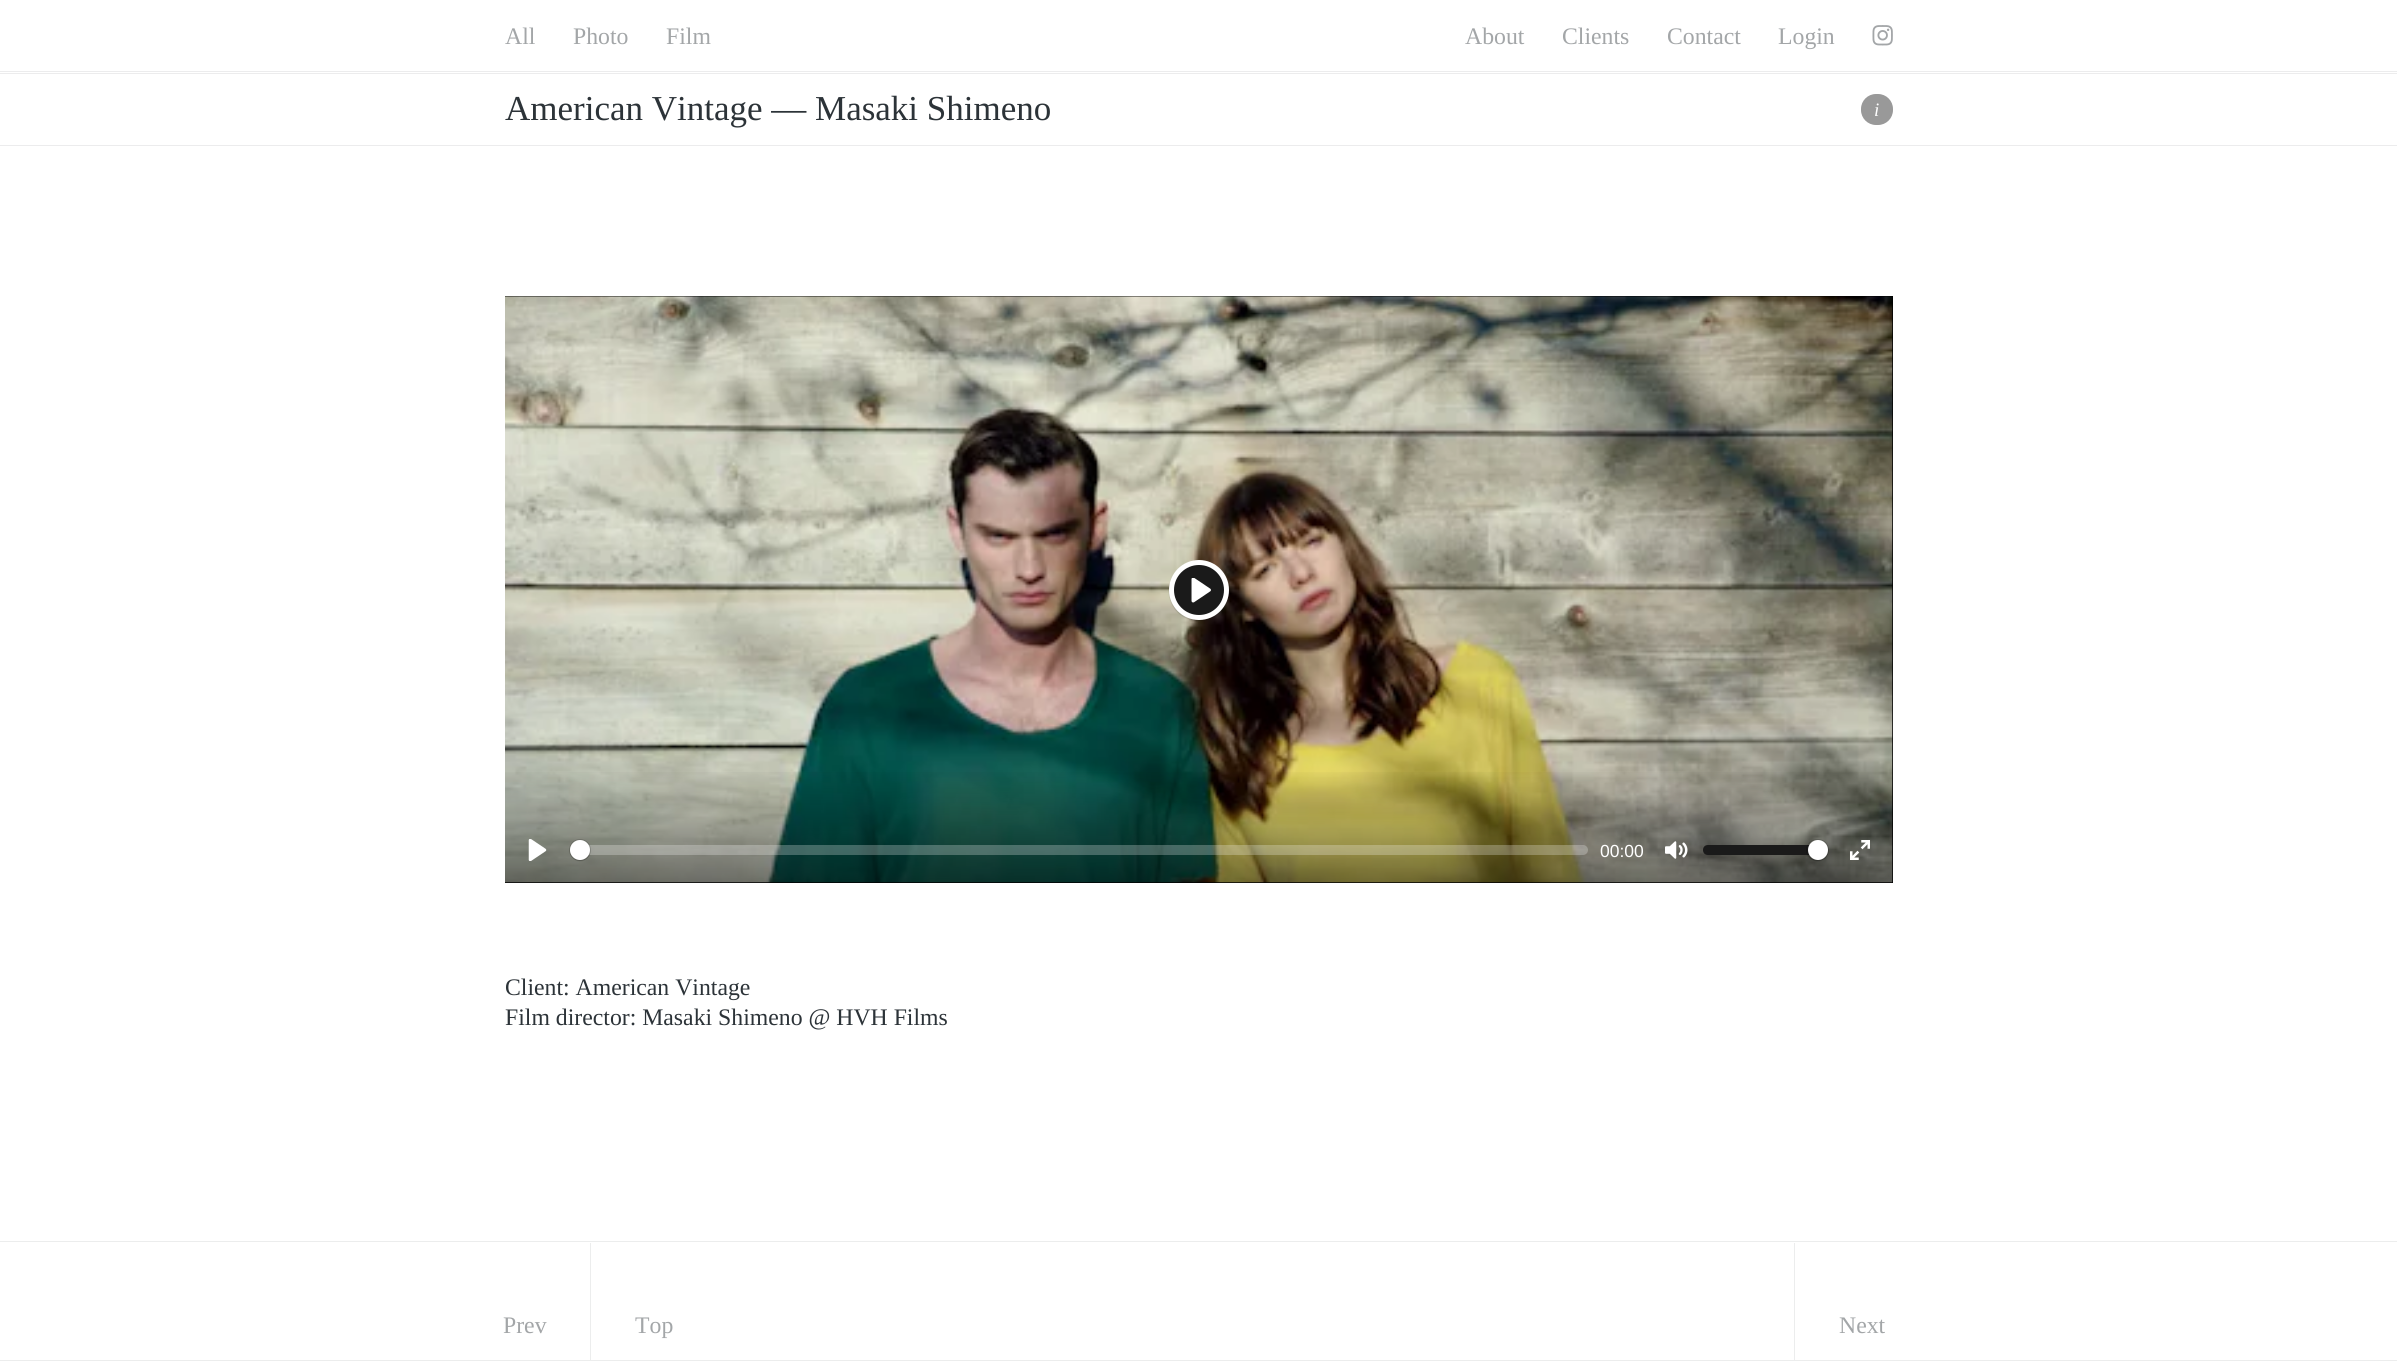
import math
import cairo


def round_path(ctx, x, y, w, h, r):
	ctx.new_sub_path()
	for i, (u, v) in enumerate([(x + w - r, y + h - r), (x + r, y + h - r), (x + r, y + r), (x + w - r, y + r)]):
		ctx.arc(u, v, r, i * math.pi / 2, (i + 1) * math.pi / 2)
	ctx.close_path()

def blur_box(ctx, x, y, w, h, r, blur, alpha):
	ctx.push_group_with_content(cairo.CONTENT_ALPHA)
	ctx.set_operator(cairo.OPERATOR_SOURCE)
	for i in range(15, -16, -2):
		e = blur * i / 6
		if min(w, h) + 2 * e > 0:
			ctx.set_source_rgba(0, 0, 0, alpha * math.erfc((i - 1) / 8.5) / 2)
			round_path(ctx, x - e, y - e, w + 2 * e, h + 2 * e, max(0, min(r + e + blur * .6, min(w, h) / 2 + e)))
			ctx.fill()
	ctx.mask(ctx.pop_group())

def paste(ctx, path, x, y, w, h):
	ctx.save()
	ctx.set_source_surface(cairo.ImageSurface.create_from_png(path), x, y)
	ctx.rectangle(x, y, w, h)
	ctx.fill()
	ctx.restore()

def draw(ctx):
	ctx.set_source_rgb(1, 1, 1)
	ctx.paint()
	ctx.set_source_rgb(0.925, 0.925, 0.929)
	ctx.rectangle(0, 71, 2397, 1)
	ctx.fill()
	ctx.select_font_face('Liberation Serif')
	ctx.set_font_size(23.75)
	ctx.set_source_rgb(0.639, 0.651, 0.659)
	for x, y, s in [
		(505, 44, 'All'),
		(573, 44, 'Photo'),
		(666, 44, 'Film'),
		(1465, 44, 'About'),
		(1562, 44, 'Clients'),
		(1667, 44, 'Contact'),
		(1778, 44, 'Login'),
	]:
		ctx.move_to(x, y)
		ctx.show_text(s)
	paste(ctx, 'media/1.png', 1872, 25, 21, 21)
	ctx.set_source_rgb(0.925, 0.925, 0.929)
	ctx.rectangle(0, 73, 2397, 1)
	ctx.fill()
	ctx.rectangle(0, 145, 2397, 1)
	ctx.fill()
	ctx.set_font_size(35)
	ctx.set_source_rgb(0.173, 0.2, 0.22)
	ctx.move_to(505, 120)
	ctx.show_text('American Vintage — Masaki Shimeno')
	ctx.set_source_rgb(0.6, 0.6, 0.6)
	round_path(ctx, 1861, 94, 32, 31, 15)
	ctx.fill()
	ctx.select_font_face('Liberation Serif', cairo.FONT_SLANT_ITALIC)
	ctx.set_font_size(19)
	ctx.set_source_rgb(1, 1, 1)
	ctx.move_to(1874, 116)
	ctx.show_text('i')
	ctx.set_source_rgb(0, 0, 0)
	ctx.rectangle(505, 296, 1388, 587)
	ctx.fill()
	paste(ctx, 'media/2.png', 505, 296, 1388, 587)
	ctx.set_source_rgb(0, 0, 0)
	blur_box(ctx, 1169, 561, 60, 60, 30, 0.5, 0.15)
	ctx.set_source_rgb(0.102, 0.102, 0.102)
	ctx.arc(1199, 590, 27.5, 0, 2 * math.pi)
	ctx.fill_preserve()
	ctx.set_source_rgb(1, 1, 1)
	ctx.set_line_width(5)
	ctx.stroke()
	paste(ctx, 'media/3.png', 1191, 578, 20, 25)
	gradient = cairo.LinearGradient(1199, 767, 1199, 883)
	gradient.add_color_stop_rgba(0, 0, 0, 0, 0)
	gradient.add_color_stop_rgba(1, 0, 0, 0, 0.5)
	ctx.set_source(gradient)
	ctx.rectangle(505, 772, 1388, 111)
	ctx.fill()
	paste(ctx, 'media/4.png', 528, 839, 19, 22)
	ctx.set_source_rgba(1, 1, 1, 0.25)
	round_path(ctx, 570, 845, 1018, 10, 5)
	ctx.fill()
	ctx.arc(580, 850, 10.5, 0, 2 * math.pi)
	ctx.set_source_rgba(0, 0, 0, 0.15)
	ctx.set_line_width(1)
	ctx.stroke()
	ctx.set_source_rgb(0, 0, 0)
	blur_box(ctx, 570, 841, 20, 20, 10, 0.5, 0.15)
	ctx.set_source_rgb(1, 1, 1)
	ctx.arc(580, 850, 10, 0, 2 * math.pi)
	ctx.fill()
	ctx.select_font_face('Liberation Sans')
	ctx.set_font_size(17.5)
	ctx.move_to(1600, 857)
	ctx.show_text('00:00')
	paste(ctx, 'media/5.png', 1665, 841, 23, 18)
	ctx.set_source_rgb(0.102, 0.102, 0.102)
	ctx.new_path()
	ctx.move_to(1708, 845)
	ctx.line_to(1826, 845)
	ctx.line_to(1826, 855)
	ctx.line_to(1708, 855)
	ctx.curve_to(1705, 855, 1703, 853, 1703, 850)
	ctx.curve_to(1703, 847, 1705, 845, 1708, 845)
	ctx.close_path()
	ctx.fill()
	round_path(ctx, 1806.5, 839.5, 22, 21, 10.5)
	ctx.set_source_rgba(0, 0, 0, 0.15)
	ctx.stroke()
	ctx.set_source_rgb(0, 0, 0)
	blur_box(ctx, 1808, 841, 20, 20, 10, 0.5, 0.15)
	ctx.set_source_rgb(1, 1, 1)
	ctx.arc(1818, 850, 10, 0, 2 * math.pi)
	ctx.fill()
	paste(ctx, 'media/6.png', 1850, 840, 20, 20)
	ctx.select_font_face('Liberation Serif')
	ctx.set_font_size(23.75)
	ctx.set_source_rgb(0.173, 0.2, 0.22)
	ctx.move_to(505, 995)
	ctx.show_text('Client: American Vintage')
	ctx.move_to(505, 1025)
	ctx.show_text('Film director: Masaki Shimeno @ HVH Films')
	ctx.set_source_rgb(0.925, 0.929, 0.929)
	ctx.rectangle(0, 1241, 2397, 1)
	ctx.fill()
	ctx.rectangle(0, 1360, 2397, 1)
	ctx.fill()
	ctx.set_source_rgb(0.639, 0.651, 0.659)
	ctx.move_to(503, 1333)
	ctx.show_text('Prev')
	ctx.set_source_rgb(0.925, 0.929, 0.929)
	ctx.rectangle(1794, 1243, 1, 117)
	ctx.fill()
	ctx.rectangle(590, 1243, 1, 117)
	ctx.fill()
	ctx.set_source_rgb(0.639, 0.651, 0.659)
	ctx.move_to(635, 1333)
	ctx.show_text('Top')
	ctx.move_to(1839, 1333)
	ctx.show_text('Next')


surface = cairo.ImageSurface(cairo.FORMAT_RGB24, 2397, 1361)
ctx = cairo.Context(surface)
options = cairo.FontOptions()
options.set_hint_metrics(cairo.HINT_METRICS_OFF)
options.set_hint_style(cairo.HINT_STYLE_NONE)
ctx.set_font_options(options)
ctx.set_miter_limit(4)
draw(ctx)
surface.write_to_png('image.png')
